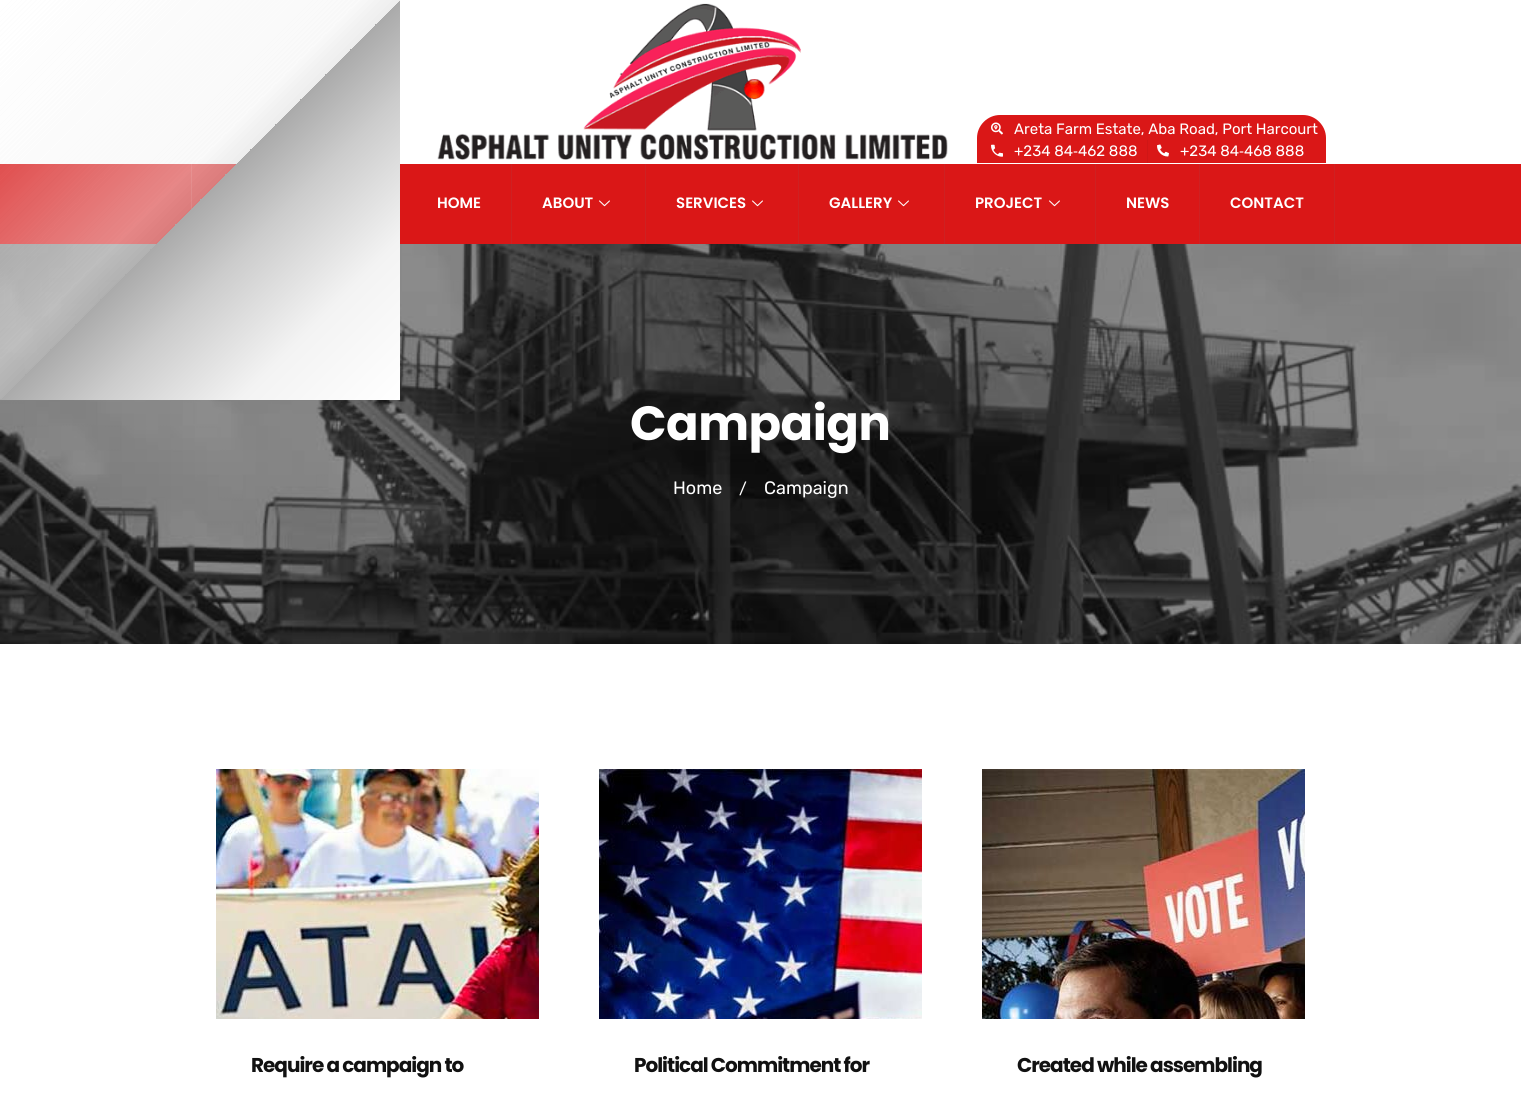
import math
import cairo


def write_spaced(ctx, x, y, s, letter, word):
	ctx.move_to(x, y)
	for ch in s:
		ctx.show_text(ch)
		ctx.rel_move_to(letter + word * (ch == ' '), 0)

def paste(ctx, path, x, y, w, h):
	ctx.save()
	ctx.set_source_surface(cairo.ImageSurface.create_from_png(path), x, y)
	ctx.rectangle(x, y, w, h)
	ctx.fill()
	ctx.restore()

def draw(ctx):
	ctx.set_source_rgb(1, 1, 1)
	ctx.paint()
	ctx.set_source_rgb(0.855, 0.09, 0.09)
	ctx.rectangle(0, 164, 1521, 80)
	ctx.fill()
	ctx.set_source_rgb(0.871, 0.18, 0.18)
	ctx.rectangle(191, 164, 1, 45)
	ctx.fill()
	paste(ctx, 'media/6.png', 0, 244, 1521, 400)
	gradient = cairo.LinearGradient(0, 0, 400, 400)
	gradient.add_color_stop_rgba(0, 0.953, 0.953, 0.953, 0)
	gradient.add_color_stop_rgba(0.45, 0.953, 0.953, 0.953, 0.3)
	gradient.add_color_stop_rgba(0.5, 0.867, 0.867, 0.867, 0.3)
	gradient.add_color_stop_rgba(0.5, 0.667, 0.667, 0.667, 1)
	gradient.add_color_stop_rgba(0.56, 0.733, 0.733, 0.733, 1)
	gradient.add_color_stop_rgba(0.62, 0.8, 0.8, 0.8, 1)
	gradient.add_color_stop_rgba(0.8, 0.953, 0.953, 0.953, 1)
	gradient.add_color_stop_rgba(1, 1, 1, 1, 1)
	ctx.set_source(gradient)
	ctx.rectangle(0, 0, 400, 399)
	ctx.fill()
	ctx.rectangle(0, 0, 400, 400)
	ctx.fill()
	paste(ctx, 'media/1.png', 437, 3, 511, 157)
	ctx.set_source_rgb(0.855, 0.09, 0.09)
	ctx.new_path()
	ctx.move_to(1000, 115)
	ctx.line_to(1303, 115)
	ctx.curve_to(1315.5, 115, 1326, 125.5, 1326, 138)
	ctx.line_to(1326, 163)
	ctx.line_to(977, 163)
	ctx.line_to(977, 138)
	ctx.curve_to(977, 125.5, 987.5, 115, 1000, 115)
	ctx.close_path()
	ctx.fill()
	paste(ctx, 'media/2.png', 991, 122, 12, 13)
	ctx.select_font_face('Rubik')
	ctx.set_font_size(15)
	ctx.set_source_rgb(1, 1, 1)
	ctx.move_to(1014, 134)
	ctx.show_text('Areta Farm Estate, Aba Road, Port Harcourt')
	paste(ctx, 'media/3.png', 991, 144, 12, 13)
	ctx.move_to(1014, 156)
	ctx.show_text('+234 84')
	ctx.select_font_face('Liberation Sans')
	ctx.move_to(1073, 156)
	ctx.show_text('‐')
	ctx.select_font_face('Rubik')
	ctx.move_to(1078, 156)
	ctx.show_text('462 888')
	ctx.set_source_rgb(0.816, 0.086, 0.086)
	ctx.rectangle(1147, 140, 1, 23)
	ctx.fill()
	paste(ctx, 'media/4.png', 1157, 144, 12, 13)
	ctx.set_source_rgb(1, 1, 1)
	ctx.move_to(1180, 156)
	ctx.show_text('+234 84')
	ctx.select_font_face('Liberation Sans')
	ctx.move_to(1239, 156)
	ctx.show_text('‐')
	ctx.select_font_face('Rubik')
	ctx.move_to(1244, 156)
	ctx.show_text('468 888')
	ctx.set_source_rgb(0.808, 0.129, 0.133)
	ctx.rectangle(511, 164, 1, 80)
	ctx.fill()
	ctx.select_font_face('Poppins SemiBold')
	ctx.set_source_rgb(1, 1, 1)
	ctx.move_to(437, 208)
	ctx.show_text('HOME')
	ctx.set_source_rgb(0.808, 0.129, 0.133)
	ctx.rectangle(645, 164, 1, 80)
	ctx.fill()
	ctx.set_source_rgb(1, 1, 1)
	ctx.move_to(542, 208)
	ctx.show_text('ABOUT')
	paste(ctx, 'media/5.png', 599, 200, 11, 7)
	ctx.set_source_rgb(0.808, 0.129, 0.133)
	ctx.rectangle(798, 164, 1, 80)
	ctx.fill()
	ctx.set_source_rgb(1, 1, 1)
	ctx.move_to(676, 208)
	ctx.show_text('SERVICES')
	paste(ctx, 'media/5.png', 752, 200, 11, 7)
	ctx.set_source_rgb(0.808, 0.129, 0.133)
	ctx.rectangle(944, 164, 1, 80)
	ctx.fill()
	ctx.set_source_rgb(1, 1, 1)
	ctx.move_to(829, 208)
	ctx.show_text('GALLERY')
	paste(ctx, 'media/5.png', 898, 200, 11, 7)
	ctx.set_source_rgb(0.808, 0.129, 0.133)
	ctx.rectangle(1095, 164, 1, 80)
	ctx.fill()
	ctx.set_source_rgb(1, 1, 1)
	ctx.move_to(975, 208)
	ctx.show_text('PROJECT')
	paste(ctx, 'media/5.png', 1049, 200, 11, 7)
	ctx.set_source_rgb(0.808, 0.129, 0.133)
	ctx.rectangle(1199, 164, 1, 80)
	ctx.fill()
	ctx.set_source_rgb(1, 1, 1)
	ctx.move_to(1126, 208)
	ctx.show_text('NEWS')
	ctx.set_source_rgb(0.808, 0.129, 0.133)
	ctx.rectangle(1334, 164, 1, 80)
	ctx.fill()
	ctx.set_source_rgb(1, 1, 1)
	ctx.move_to(1230, 208)
	ctx.show_text('CONTACT')
	ctx.select_font_face('Poppins', cairo.FONT_SLANT_NORMAL, cairo.FONT_WEIGHT_BOLD)
	ctx.set_font_size(48)
	write_spaced(ctx, 630, 440, 'Campaign', -0.5, 0)
	ctx.select_font_face('Rubik')
	ctx.set_font_size(18)
	ctx.move_to(673, 494)
	ctx.show_text('Home')
	ctx.set_font_size(16)
	ctx.move_to(739, 494)
	ctx.show_text('/')
	ctx.set_font_size(18)
	ctx.move_to(764, 494)
	ctx.show_text('Campaign')
	paste(ctx, 'media/7.png', 216, 769, 323, 250)
	ctx.select_font_face('Poppins', cairo.FONT_SLANT_NORMAL, cairo.FONT_WEIGHT_BOLD)
	ctx.set_font_size(20)
	ctx.set_source_rgb(0.067, 0.067, 0.067)
	write_spaced(ctx, 251, 1072, 'Require a campaign to', -1, 0)
	paste(ctx, 'media/8.png', 599, 769, 323, 250)
	write_spaced(ctx, 634, 1072, 'Political Commitment for', -1, 0)
	paste(ctx, 'media/9.png', 982, 769, 323, 250)
	write_spaced(ctx, 1017, 1072, 'Created while assembling', -1, 0)


surface = cairo.ImageSurface(cairo.FORMAT_RGB24, 1521, 1095)
ctx = cairo.Context(surface)
options = cairo.FontOptions()
options.set_hint_metrics(cairo.HINT_METRICS_OFF)
options.set_hint_style(cairo.HINT_STYLE_NONE)
ctx.set_font_options(options)
ctx.set_miter_limit(4)
draw(ctx)
surface.write_to_png('image.png')
